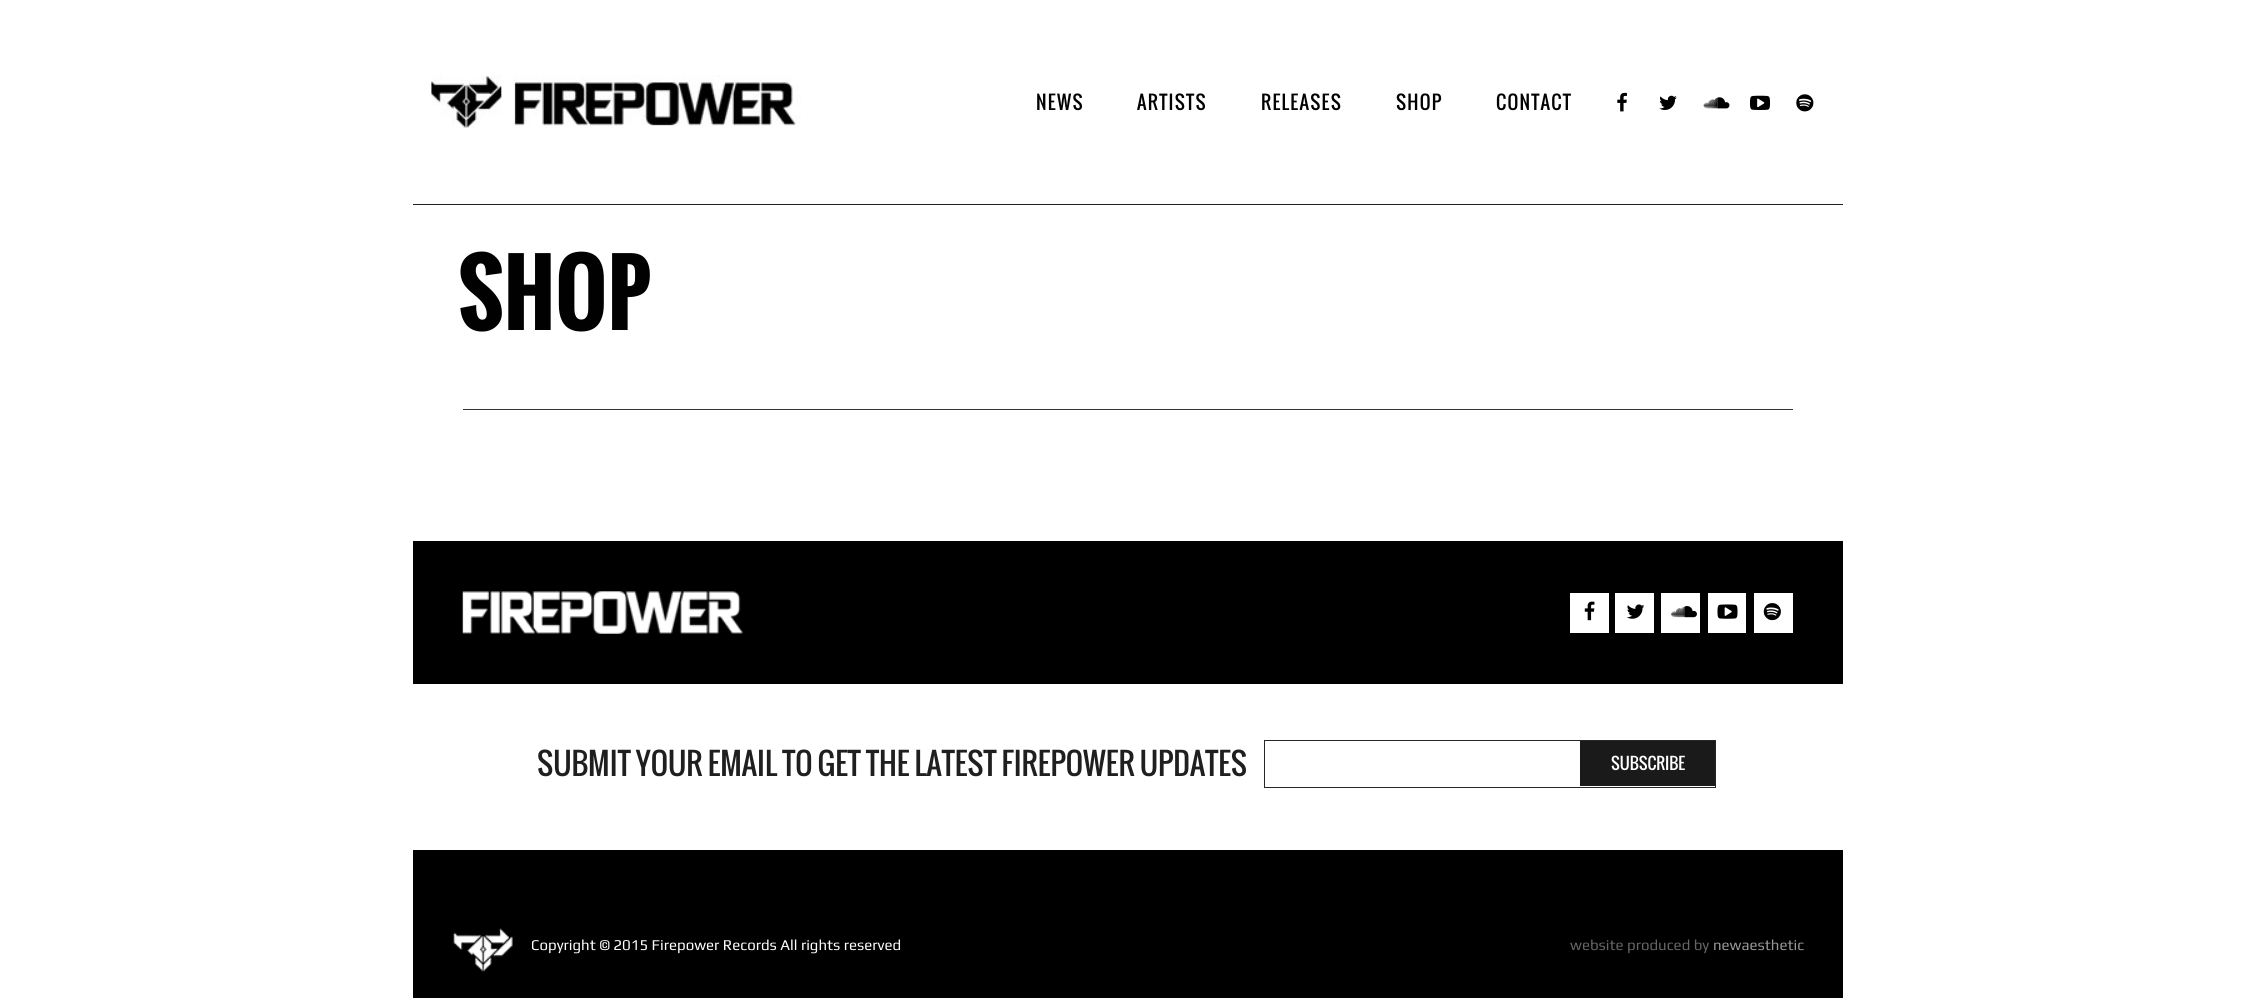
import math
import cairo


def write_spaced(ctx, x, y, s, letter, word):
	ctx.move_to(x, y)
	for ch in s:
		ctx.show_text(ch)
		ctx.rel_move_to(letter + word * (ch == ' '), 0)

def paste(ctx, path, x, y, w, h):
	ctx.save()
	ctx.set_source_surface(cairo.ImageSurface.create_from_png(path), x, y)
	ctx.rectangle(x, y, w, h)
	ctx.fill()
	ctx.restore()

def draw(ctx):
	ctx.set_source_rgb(1, 1, 1)
	ctx.paint()
	paste(ctx, 'media/1.png', 431, 75, 370, 53)
	ctx.select_font_face('Oswald')
	ctx.set_font_size(18.75)
	ctx.set_source_rgb(0.004, 0.004, 0.004)
	for x, y, s in [
		(1036, 110, 'NEWS'),
		(1137, 110, 'ARTISTS'),
		(1261, 110, 'RELEASES'),
		(1396, 110, 'SHOP'),
		(1496, 110, 'CONTACT'),
	]:
		write_spaced(ctx, x, y, s, 1.25, 0)
	paste(ctx, 'media/2.png', 1617, 92, 10, 20)
	paste(ctx, 'media/3.png', 1659, 95, 18, 15)
	paste(ctx, 'media/4.png', 1703, 97, 27, 12)
	paste(ctx, 'media/5.png', 1750, 95, 20, 15)
	paste(ctx, 'media/6.png', 1796, 94, 18, 18)
	ctx.set_source_rgb(0.122, 0.122, 0.122)
	ctx.rectangle(413, 204, 1430, 1)
	ctx.fill()
	ctx.select_font_face('Oswald', cairo.FONT_SLANT_NORMAL, cairo.FONT_WEIGHT_BOLD)
	ctx.set_font_size(87.5)
	ctx.set_source_rgb(0.004, 0.004, 0.004)
	ctx.move_to(458, 330)
	ctx.show_text('SHOP')
	ctx.set_source_rgb(0.208, 0.208, 0.208)
	ctx.rectangle(463, 409, 1330, 1)
	ctx.fill()
	ctx.set_source_rgb(0, 0, 0)
	ctx.rectangle(413, 541, 1430, 457)
	ctx.fill()
	paste(ctx, 'media/7.png', 462, 591, 281, 43)
	ctx.set_source_rgb(1, 1, 1)
	ctx.rectangle(1570, 593, 39, 40)
	ctx.fill()
	paste(ctx, 'media/8.png', 1584, 601, 11, 20)
	ctx.rectangle(1615, 593, 39, 40)
	ctx.fill()
	paste(ctx, 'media/9.png', 1627, 604, 18, 15)
	ctx.rectangle(1661, 593, 39, 40)
	ctx.fill()
	paste(ctx, 'media/10.png', 1671, 606, 26, 12)
	ctx.rectangle(1708, 593, 38, 40)
	ctx.fill()
	paste(ctx, 'media/11.png', 1717, 604, 21, 15)
	ctx.rectangle(1754, 593, 39, 40)
	ctx.fill()
	paste(ctx, 'media/12.png', 1763, 603, 18, 18)
	ctx.rectangle(413, 684, 1430, 166)
	ctx.fill()
	ctx.select_font_face('Oswald')
	ctx.set_font_size(30)
	ctx.set_source_rgb(0.122, 0.122, 0.122)
	ctx.move_to(537, 776)
	ctx.show_text('SUBMIT YOUR EMAIL TO GET THE LATEST FIREPOWER UPDATES')
	ctx.rectangle(1264.5, 740.5, 451, 47)
	ctx.set_source_rgb(0.153, 0.153, 0.153)
	ctx.set_line_width(1)
	ctx.stroke()
	ctx.set_source_rgb(0.102, 0.102, 0.102)
	ctx.rectangle(1580, 741, 135, 45)
	ctx.fill()
	ctx.set_font_size(16.25)
	ctx.set_source_rgb(1, 1, 1)
	ctx.move_to(1611, 770)
	ctx.show_text('SUBSCRIBE')
	paste(ctx, 'media/13.png', 453, 928, 60, 44)
	ctx.select_font_face('Play')
	ctx.set_font_size(15)
	ctx.move_to(531, 950)
	ctx.show_text('Copyright © 2015 Firepower Records All rights reserved')
	ctx.set_source_rgb(0.4, 0.4, 0.4)
	ctx.move_to(1570, 950)
	ctx.show_text('website produced by')
	ctx.set_source_rgb(0.6, 0.6, 0.6)
	ctx.move_to(1713, 950)
	ctx.show_text('newaesthetic')


surface = cairo.ImageSurface(cairo.FORMAT_RGB24, 2253, 998)
ctx = cairo.Context(surface)
options = cairo.FontOptions()
options.set_hint_metrics(cairo.HINT_METRICS_OFF)
options.set_hint_style(cairo.HINT_STYLE_NONE)
ctx.set_font_options(options)
ctx.set_miter_limit(4)
draw(ctx)
surface.write_to_png('image.png')
